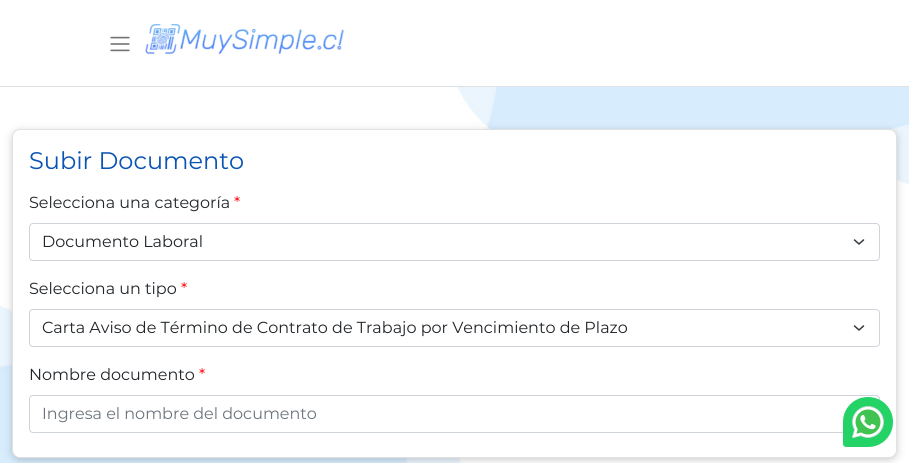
import math
import cairo


def round_path(ctx, x, y, w, h, r):
	ctx.new_sub_path()
	for i, (u, v) in enumerate([(x + w - r, y + h - r), (x + r, y + h - r), (x + r, y + r), (x + w - r, y + r)]):
		ctx.arc(u, v, r, i * math.pi / 2, (i + 1) * math.pi / 2)
	ctx.close_path()

def blur_box(ctx, x, y, w, h, r, blur, alpha):
	ctx.push_group_with_content(cairo.CONTENT_ALPHA)
	ctx.set_operator(cairo.OPERATOR_SOURCE)
	for i in range(15, -16, -2):
		e = blur * i / 6
		if min(w, h) + 2 * e > 0:
			ctx.set_source_rgba(0, 0, 0, alpha * math.erfc((i - 1) / 8.5) / 2)
			round_path(ctx, x - e, y - e, w + 2 * e, h + 2 * e, max(0, min(r + e + blur * .6, min(w, h) / 2 + e)))
			ctx.fill()
	ctx.mask(ctx.pop_group())

def paste(ctx, path, x, y, w, h):
	ctx.save()
	ctx.set_source_surface(cairo.ImageSurface.create_from_png(path), x, y)
	ctx.rectangle(x, y, w, h)
	ctx.fill()
	ctx.restore()

def draw(ctx):
	ctx.set_source_rgb(1, 1, 1)
	ctx.paint()
	paste(ctx, 'media/1.png', 0, 87, 909, 376)
	ctx.set_source_rgb(0.871, 0.886, 0.902)
	ctx.rectangle(0, 86, 909, 1)
	ctx.fill()
	paste(ctx, 'media/2.png', 110, 36, 20, 16)
	paste(ctx, 'media/3.png', 145, 24, 199, 31)
	ctx.set_source_rgb(0, 0, 0)
	blur_box(ctx, 12, 131, 885, 329, 8, 4, 0.2)
	ctx.set_source_rgb(1, 1, 1)
	round_path(ctx, 12, 129, 885, 329, 8)
	ctx.fill()
	round_path(ctx, 12.5, 129.5, 884, 328, 7.5)
	ctx.set_source_rgba(0, 0, 0, 0.12)
	ctx.set_line_width(1)
	ctx.stroke()
	ctx.select_font_face('Montserrat')
	ctx.set_font_size(24)
	ctx.set_source_rgb(0.035, 0.325, 0.706)
	ctx.move_to(29, 169)
	ctx.show_text('Subir Documento')
	ctx.set_font_size(16)
	ctx.set_source_rgb(0.129, 0.145, 0.161)
	ctx.move_to(29, 208)
	ctx.show_text('Selecciona una categoría')
	ctx.set_source_rgb(1, 0, 0)
	ctx.move_to(234, 208)
	ctx.show_text('*')
	ctx.new_path()
	ctx.move_to(854.5, 240)
	ctx.line_to(859, 244)
	ctx.line_to(863.5, 240)
	ctx.set_source_rgb(0.204, 0.227, 0.251)
	ctx.set_line_width(1.5)
	ctx.set_line_cap(cairo.LINE_CAP_ROUND)
	ctx.set_line_join(cairo.LINE_JOIN_ROUND)
	ctx.stroke()
	round_path(ctx, 29.5, 223.5, 850, 37, 3.5)
	ctx.set_source_rgb(0.808, 0.831, 0.855)
	ctx.set_line_width(1)
	ctx.set_line_cap(cairo.LINE_CAP_BUTT)
	ctx.set_line_join(cairo.LINE_JOIN_MITER)
	ctx.stroke()
	ctx.set_source_rgb(0.129, 0.145, 0.161)
	ctx.move_to(42, 247)
	ctx.show_text('Documento Laboral')
	ctx.move_to(29, 294)
	ctx.show_text('Selecciona un tipo')
	ctx.set_source_rgb(1, 0, 0)
	ctx.move_to(181, 294)
	ctx.show_text('*')
	ctx.new_path()
	ctx.move_to(854.5, 326)
	ctx.line_to(859, 330)
	ctx.line_to(863.5, 326)
	ctx.set_source_rgb(0.204, 0.227, 0.251)
	ctx.set_line_width(1.5)
	ctx.set_line_cap(cairo.LINE_CAP_ROUND)
	ctx.set_line_join(cairo.LINE_JOIN_ROUND)
	ctx.stroke()
	round_path(ctx, 29.5, 309.5, 850, 37, 3.5)
	ctx.set_source_rgb(0.808, 0.831, 0.855)
	ctx.set_line_width(1)
	ctx.set_line_cap(cairo.LINE_CAP_BUTT)
	ctx.set_line_join(cairo.LINE_JOIN_MITER)
	ctx.stroke()
	ctx.set_source_rgb(0.129, 0.145, 0.161)
	ctx.move_to(42, 333)
	ctx.show_text('Carta Aviso de Término de Contrato de Trabajo por Vencimiento de Plazo')
	ctx.move_to(29, 380)
	ctx.show_text('Nombre documento')
	ctx.set_source_rgb(1, 0, 0)
	ctx.move_to(199, 380)
	ctx.show_text('*')
	round_path(ctx, 29.5, 395.5, 850, 37, 3.5)
	ctx.set_source_rgb(0.808, 0.831, 0.855)
	ctx.stroke()
	ctx.set_source_rgb(0.424, 0.459, 0.49)
	ctx.move_to(42, 419)
	ctx.show_text('Ingresa el nombre del documento')
	ctx.set_source_rgb(0.141, 0.827, 0.4)
	ctx.new_path()
	ctx.move_to(868, 397)
	ctx.curve_to(882, 397, 893, 408, 893, 422)
	ctx.curve_to(893, 436, 882, 447, 868, 447)
	ctx.line_to(846, 447)
	ctx.curve_to(844.5, 447, 843, 445.5, 843, 444)
	ctx.line_to(843, 422)
	ctx.curve_to(843, 408, 854, 397, 868, 397)
	ctx.close_path()
	ctx.fill()
	paste(ctx, 'media/4.png', 852, 406, 32, 32)


surface = cairo.ImageSurface(cairo.FORMAT_RGB24, 909, 463)
ctx = cairo.Context(surface)
options = cairo.FontOptions()
options.set_hint_metrics(cairo.HINT_METRICS_OFF)
options.set_hint_style(cairo.HINT_STYLE_NONE)
ctx.set_font_options(options)
ctx.set_miter_limit(4)
draw(ctx)
surface.write_to_png('image.png')
